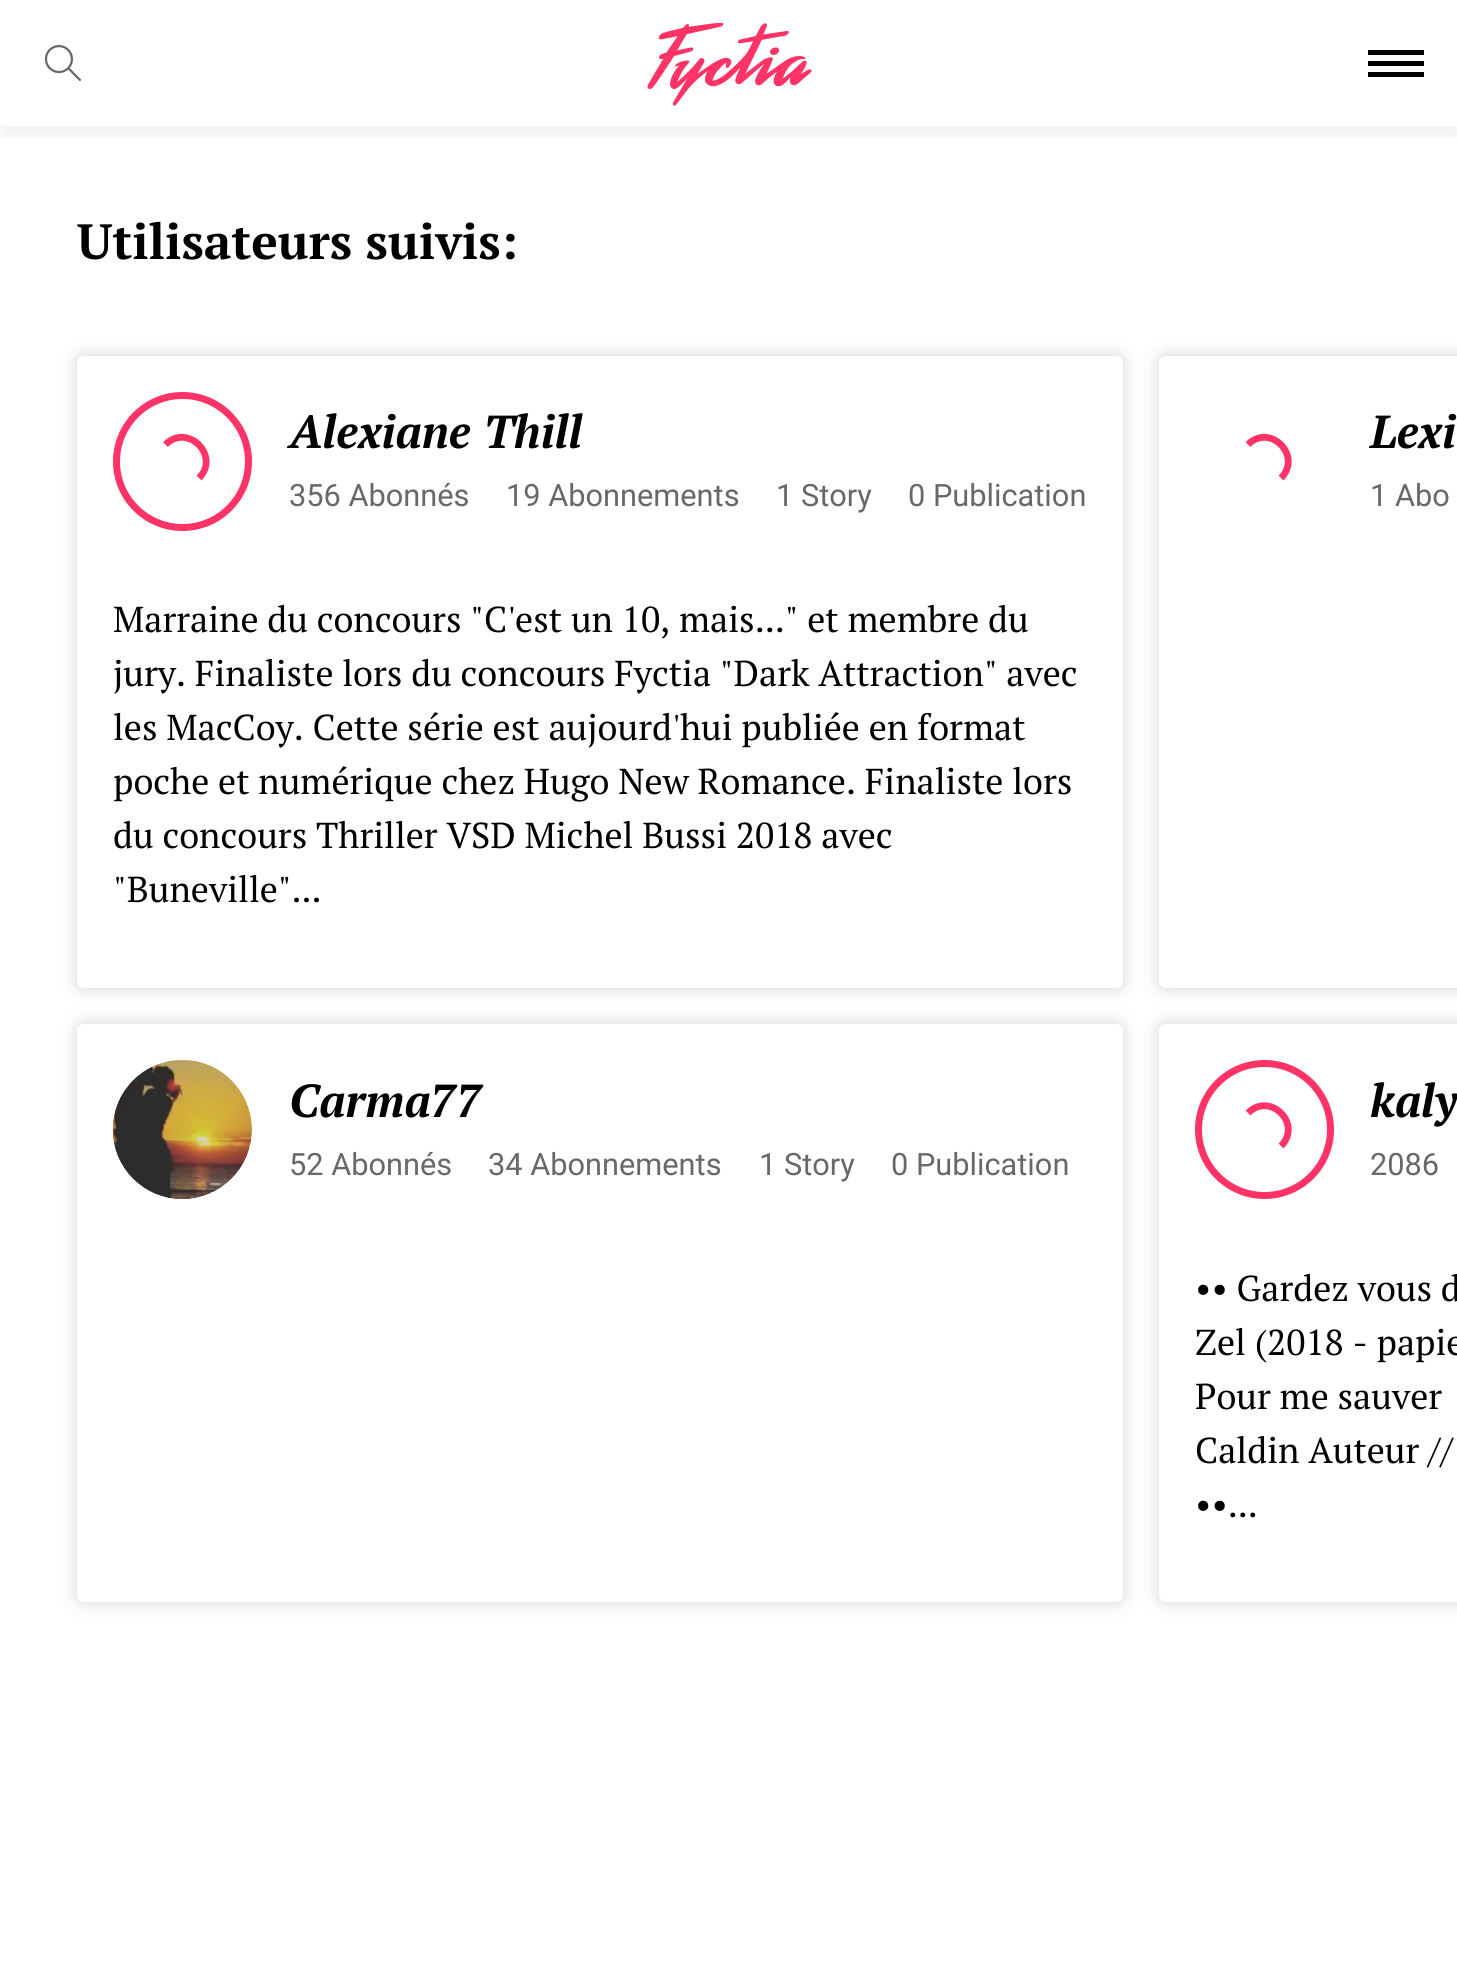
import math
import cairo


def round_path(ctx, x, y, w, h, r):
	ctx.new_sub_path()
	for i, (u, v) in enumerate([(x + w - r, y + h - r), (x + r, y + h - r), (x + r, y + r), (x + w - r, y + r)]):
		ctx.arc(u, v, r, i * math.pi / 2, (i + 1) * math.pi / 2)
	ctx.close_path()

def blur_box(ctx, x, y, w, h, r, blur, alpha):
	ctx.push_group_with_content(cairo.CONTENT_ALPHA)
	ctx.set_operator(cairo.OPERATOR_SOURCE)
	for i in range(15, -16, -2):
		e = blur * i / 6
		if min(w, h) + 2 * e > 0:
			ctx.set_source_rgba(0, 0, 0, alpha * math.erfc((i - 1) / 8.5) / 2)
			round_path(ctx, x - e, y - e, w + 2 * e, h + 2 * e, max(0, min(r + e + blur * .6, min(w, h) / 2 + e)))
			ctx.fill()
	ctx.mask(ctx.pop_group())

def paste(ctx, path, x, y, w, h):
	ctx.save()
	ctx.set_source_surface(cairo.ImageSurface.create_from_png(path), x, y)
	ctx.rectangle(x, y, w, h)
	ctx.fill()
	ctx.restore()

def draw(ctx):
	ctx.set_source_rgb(1, 1, 1)
	ctx.paint()
	ctx.save()
	ctx.rectangle(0, 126, 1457, 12)
	ctx.clip()
	ctx.set_source_rgb(0, 0, 0)
	blur_box(ctx, 0, 11, 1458, 126, 0, 4.5, 0.05)
	ctx.restore()
	paste(ctx, 'media/1.png', 44, 45, 37, 36)
	paste(ctx, 'media/2.png', 647, 23, 165, 83)
	ctx.set_source_rgb(0, 0, 0)
	ctx.rectangle(1368, 61, 56, 5)
	ctx.rectangle(1368, 50, 56, 5)
	ctx.rectangle(1368, 72, 56, 5)
	ctx.fill()
	ctx.select_font_face('PT Serif', cairo.FONT_SLANT_NORMAL, cairo.FONT_WEIGHT_BOLD)
	ctx.set_font_size(49.5)
	ctx.move_to(77, 259)
	ctx.show_text('Utilisateurs suivis:')
	ctx.set_source_rgb(0, 0, 0)
	blur_box(ctx, 77, 356, 1046, 632, 7, 9, 0.17)
	ctx.set_source_rgb(1, 1, 1)
	round_path(ctx, 77, 356, 1046, 632, 7)
	ctx.fill()
	ctx.arc(182.5, 461.5, 66, 0, 2 * math.pi)
	ctx.set_source_rgb(1, 0.2, 0.4)
	ctx.set_line_width(7)
	ctx.stroke()
	ctx.new_path()
	ctx.move_to(165.5, 444.5)
	ctx.curve_to(187.5, 422.5, 221, 456, 199, 478)
	ctx.set_line_width(6.8)
	ctx.stroke()
	ctx.select_font_face('PT Serif', cairo.FONT_SLANT_ITALIC, cairo.FONT_WEIGHT_BOLD)
	ctx.set_font_size(46.25)
	ctx.set_source_rgb(0, 0, 0)
	ctx.move_to(289, 448)
	ctx.show_text('Alexiane Thill')
	ctx.select_font_face('Roboto')
	ctx.set_font_size(30.75)
	ctx.set_source_rgb(0.408, 0.408, 0.408)
	for x, y, s in [
		(289, 506, '356 Abonnés'),
		(506, 506, '19 Abonnements'),
		(776, 506, '1 Story'),
		(908, 506, '0 Publication'),
	]:
		ctx.move_to(x, y)
		ctx.show_text(s)
	ctx.select_font_face('PT Serif')
	ctx.set_font_size(36)
	ctx.set_source_rgb(0, 0, 0)
	for x, y, s in [
		(113, 632, 'Marraine du concours "C\'est un 10, mais..." et membre du'),
		(113, 686, 'jury. Finaliste lors du concours Fyctia "Dark Attraction" avec'),
		(113, 740, 'les MacCoy. Cette série est aujourd\'hui publiée en format'),
		(113, 794, 'poche et numérique chez Hugo New Romance. Finaliste lors'),
		(113, 848, 'du concours Thriller VSD Michel Bussi 2018 avec'),
		(113, 902, '"Buneville"...'),
	]:
		ctx.move_to(x, y)
		ctx.show_text(s)
	ctx.set_source_rgb(0, 0, 0)
	blur_box(ctx, 1159, 356, 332, 632, 7, 9, 0.17)
	ctx.set_source_rgb(1, 1, 1)
	ctx.new_path()
	ctx.move_to(1166, 356)
	ctx.line_to(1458, 356)
	ctx.line_to(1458, 988)
	ctx.line_to(1166, 988)
	ctx.curve_to(1162, 988, 1159, 985, 1159, 981)
	ctx.line_to(1159, 363)
	ctx.curve_to(1159, 359, 1162, 356, 1166, 356)
	ctx.close_path()
	ctx.fill()
	ctx.new_path()
	ctx.move_to(1248, 444.5)
	ctx.curve_to(1270, 422.5, 1303, 456, 1281, 478)
	ctx.set_source_rgb(1, 0.2, 0.4)
	ctx.stroke()
	ctx.select_font_face('PT Serif', cairo.FONT_SLANT_ITALIC, cairo.FONT_WEIGHT_BOLD)
	ctx.set_font_size(46.25)
	ctx.set_source_rgb(0, 0, 0)
	ctx.move_to(1370, 448)
	ctx.show_text('Lexi')
	ctx.select_font_face('Roboto')
	ctx.set_font_size(30.75)
	ctx.set_source_rgb(0.408, 0.408, 0.408)
	ctx.move_to(1370, 506)
	ctx.show_text('1 Abo')
	ctx.set_source_rgb(0, 0, 0)
	blur_box(ctx, 77, 1024, 1046, 578, 7, 9, 0.17)
	ctx.set_source_rgb(1, 1, 1)
	round_path(ctx, 77, 1024, 1046, 578, 7)
	ctx.fill()
	paste(ctx, 'media/3.png', 112, 1060, 140, 139)
	ctx.select_font_face('PT Serif', cairo.FONT_SLANT_ITALIC, cairo.FONT_WEIGHT_BOLD)
	ctx.set_font_size(46.25)
	ctx.set_source_rgb(0, 0, 0)
	ctx.move_to(289, 1117)
	ctx.show_text('Carma77')
	ctx.select_font_face('Roboto')
	ctx.set_font_size(30.75)
	ctx.set_source_rgb(0.408, 0.408, 0.408)
	for x, y, s in [
		(289, 1175, '52 Abonnés'),
		(488, 1175, '34 Abonnements'),
		(759, 1175, '1 Story'),
		(891, 1175, '0 Publication'),
	]:
		ctx.move_to(x, y)
		ctx.show_text(s)
	ctx.set_source_rgb(0, 0, 0)
	blur_box(ctx, 1159, 1024, 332, 578, 7, 9, 0.17)
	ctx.set_source_rgb(1, 1, 1)
	ctx.new_path()
	ctx.move_to(1166, 1024)
	ctx.line_to(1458, 1024)
	ctx.line_to(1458, 1602)
	ctx.line_to(1166, 1602)
	ctx.curve_to(1162, 1602, 1159, 1599, 1159, 1595)
	ctx.line_to(1159, 1031)
	ctx.curve_to(1159, 1027, 1162, 1024, 1166, 1024)
	ctx.close_path()
	ctx.fill()
	ctx.arc(1264.5, 1129.5, 66, 0, 2 * math.pi)
	ctx.set_source_rgb(1, 0.2, 0.4)
	ctx.set_line_width(7)
	ctx.stroke()
	ctx.new_path()
	ctx.move_to(1248, 1113)
	ctx.curve_to(1270, 1091, 1303, 1124, 1281, 1146)
	ctx.set_line_width(6.8)
	ctx.stroke()
	ctx.select_font_face('PT Serif', cairo.FONT_SLANT_ITALIC, cairo.FONT_WEIGHT_BOLD)
	ctx.set_font_size(46.25)
	ctx.set_source_rgb(0, 0, 0)
	ctx.move_to(1370, 1117)
	ctx.show_text('kaly')
	ctx.select_font_face('Roboto')
	ctx.set_font_size(30.75)
	ctx.set_source_rgb(0.408, 0.408, 0.408)
	ctx.move_to(1370, 1175)
	ctx.show_text('2086')
	ctx.select_font_face('PT Serif')
	ctx.set_font_size(36)
	ctx.set_source_rgb(0, 0, 0)
	for x, y, s in [
		(1195, 1301, '•• Gardez vous d'),
		(1195, 1355, 'Zel (2018 - papie'),
		(1195, 1409, 'Pour me sauver'),
		(1195, 1463, 'Caldin Auteur //'),
		(1195, 1517, '••...'),
	]:
		ctx.move_to(x, y)
		ctx.show_text(s)


surface = cairo.ImageSurface(cairo.FORMAT_RGB24, 1457, 1972)
ctx = cairo.Context(surface)
options = cairo.FontOptions()
options.set_hint_metrics(cairo.HINT_METRICS_OFF)
options.set_hint_style(cairo.HINT_STYLE_NONE)
ctx.set_font_options(options)
ctx.set_miter_limit(4)
draw(ctx)
surface.write_to_png('image.png')
